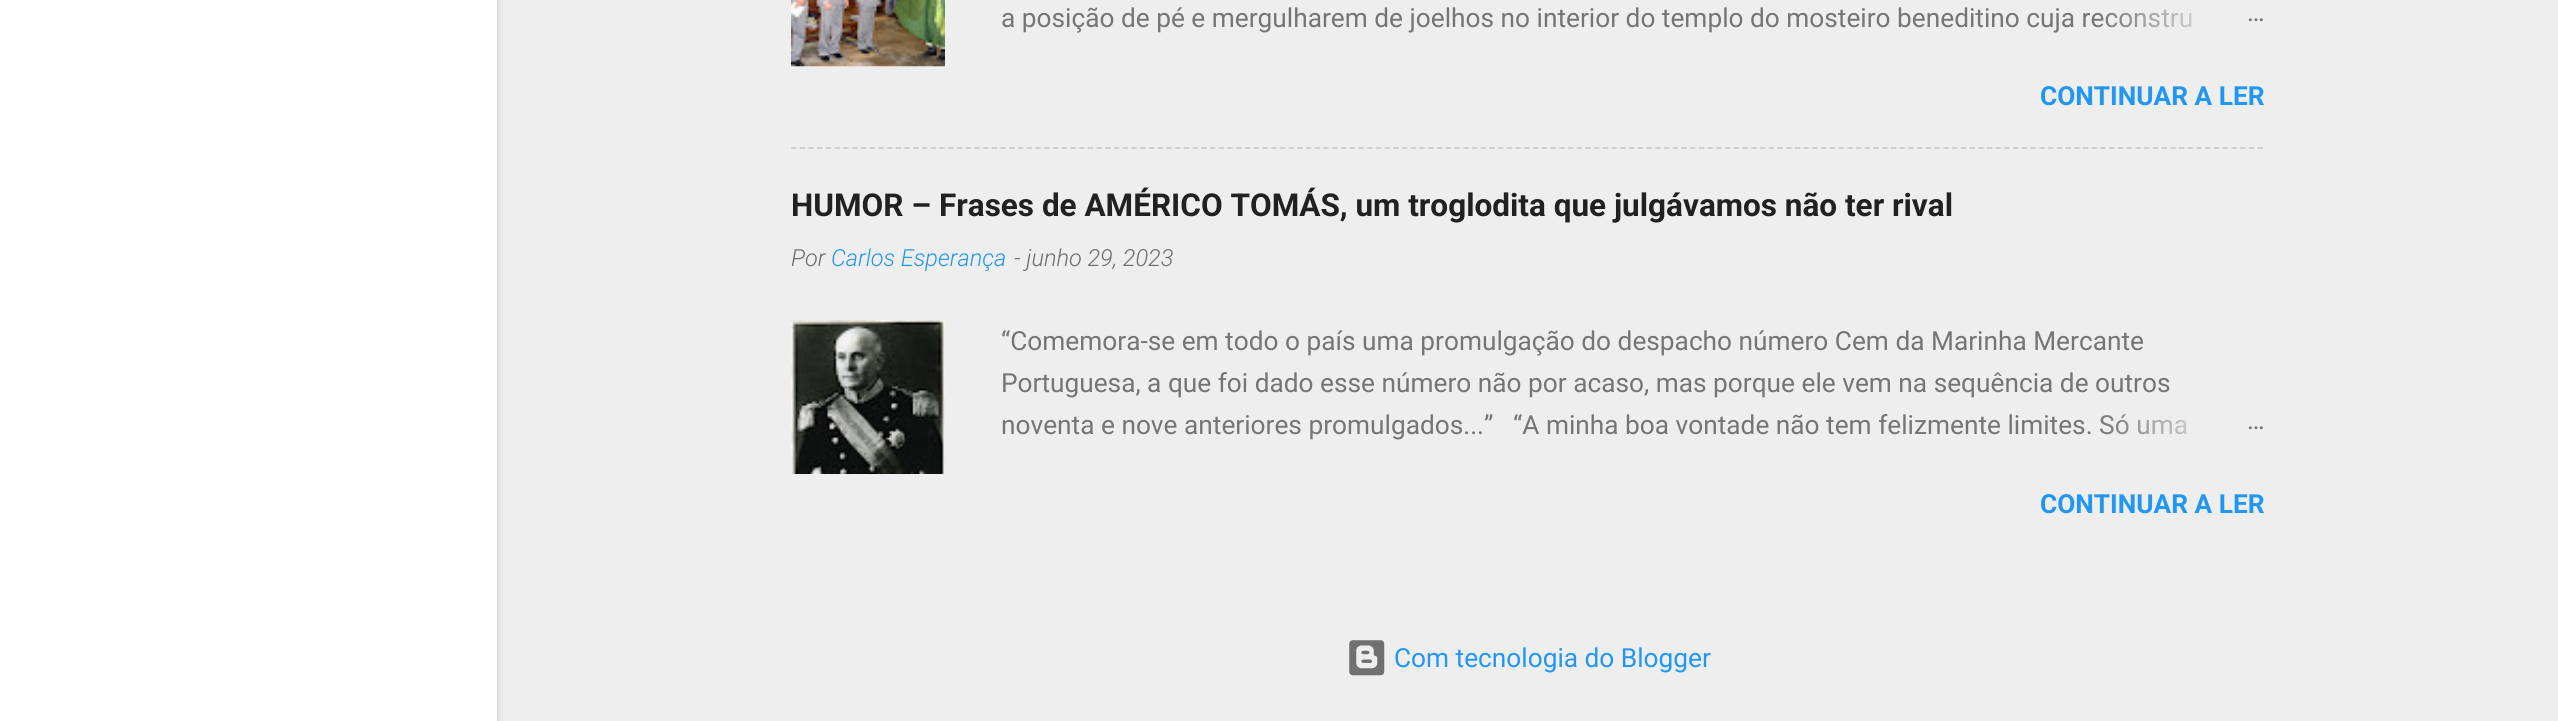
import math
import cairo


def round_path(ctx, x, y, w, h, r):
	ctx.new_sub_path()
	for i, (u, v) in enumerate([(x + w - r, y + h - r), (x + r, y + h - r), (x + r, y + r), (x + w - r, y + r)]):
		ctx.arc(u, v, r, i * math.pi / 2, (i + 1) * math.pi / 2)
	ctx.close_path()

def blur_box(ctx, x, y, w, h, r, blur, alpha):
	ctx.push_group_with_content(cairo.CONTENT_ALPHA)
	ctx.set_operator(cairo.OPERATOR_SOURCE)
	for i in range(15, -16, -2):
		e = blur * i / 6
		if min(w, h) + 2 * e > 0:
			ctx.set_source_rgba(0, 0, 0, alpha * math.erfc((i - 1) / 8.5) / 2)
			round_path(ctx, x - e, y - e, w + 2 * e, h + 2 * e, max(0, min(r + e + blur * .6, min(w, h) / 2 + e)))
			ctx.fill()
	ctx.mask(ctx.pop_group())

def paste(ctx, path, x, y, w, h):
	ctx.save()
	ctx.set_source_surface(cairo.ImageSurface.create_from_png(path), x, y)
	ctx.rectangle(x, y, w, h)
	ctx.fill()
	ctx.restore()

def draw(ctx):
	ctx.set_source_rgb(0.933, 0.933, 0.933)
	ctx.paint()
	ctx.set_source_rgb(0, 0, 0)
	blur_box(ctx, 2, -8, 497, 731, 0, 2.5, 0.1)
	ctx.set_source_rgb(1, 1, 1)
	ctx.rectangle(0, 0, 497, 721)
	ctx.fill()
	paste(ctx, 'media/1.png', 791, 0, 154, 67)
	ctx.select_font_face('Roboto')
	ctx.set_font_size(26.25)
	ctx.set_source_rgb(0.459, 0.459, 0.459)
	ctx.move_to(1001, 27)
	ctx.show_text('a posição de pé e mergulharem de joelhos no interior do templo do mosteiro beneditino cuja reconstru')
	gradient = cairo.LinearGradient(2265, 18, 2097, 17)
	gradient.add_color_stop_rgba(0, 0.933, 0.933, 0.933, 1)
	gradient.add_color_stop_rgba(0.2, 0.933, 0.933, 0.933, 1)
	gradient.add_color_stop_rgba(1, 0.933, 0.933, 0.933, 0)
	ctx.set_source(gradient)
	ctx.rectangle(2100, 9, 92, 19)
	ctx.fill()
	ctx.set_source_rgb(0.459, 0.459, 0.459)
	ctx.move_to(2247, 21)
	ctx.show_text('…')
	ctx.select_font_face('Roboto', cairo.FONT_SLANT_NORMAL, cairo.FONT_WEIGHT_BOLD)
	ctx.set_source_rgb(0.129, 0.588, 0.953)
	ctx.move_to(2040, 105)
	ctx.show_text('CONTINUAR A LER')
	ctx.new_path()
	ctx.move_to(791, 148)
	ctx.line_to(2264.5, 148)
	ctx.set_source_rgb(0.8, 0.8, 0.8)
	ctx.set_line_width(1.8)
	ctx.set_dash([5.25, 3.48])
	ctx.stroke()
	ctx.set_font_size(31.5)
	ctx.set_source_rgb(0.129, 0.129, 0.129)
	ctx.move_to(791, 216)
	ctx.show_text('HUMOR – Frases de AMÉRICO TOMÁS, um troglodita que julgávamos não ter rival')
	ctx.select_font_face('Roboto Light', cairo.FONT_SLANT_ITALIC)
	ctx.set_font_size(23.5)
	ctx.set_source_rgb(0.427, 0.427, 0.427)
	ctx.move_to(791, 266)
	ctx.show_text('Por')
	ctx.set_source_rgb(0.129, 0.588, 0.953)
	ctx.move_to(831, 266)
	ctx.show_text('Carlos Esperança')
	ctx.set_source_rgb(0.427, 0.427, 0.427)
	ctx.move_to(1014, 266)
	ctx.show_text('- junho 29, 2023')
	paste(ctx, 'media/2.png', 791, 320, 154, 154)
	ctx.select_font_face('Roboto')
	ctx.set_font_size(26.25)
	ctx.set_source_rgb(0.459, 0.459, 0.459)
	for x, y, s in [
		(1001, 350, '“Comemora-se em todo o país uma promulgação do despacho número Cem da Marinha Mercante'),
		(1001, 392, 'Portuguesa, a que foi dado esse número não por acaso, mas porque ele vem na sequência de outros'),
		(1001, 434, 'noventa e nove anteriores promulgados...”'),
		(1513, 434, '“A minha boa vontade não tem felizmente limites. Só uma'),
	]:
		ctx.move_to(x, y)
		ctx.show_text(s)
	gradient = cairo.LinearGradient(2265, 425, 2097, 425)
	gradient.add_color_stop_rgba(0, 0.933, 0.933, 0.933, 1)
	gradient.add_color_stop_rgba(0.2, 0.933, 0.933, 0.933, 1)
	gradient.add_color_stop_rgba(1, 0.933, 0.933, 0.933, 0)
	ctx.set_source(gradient)
	ctx.rectangle(2101, 414, 86, 21)
	ctx.fill()
	ctx.set_source_rgb(0.459, 0.459, 0.459)
	ctx.move_to(2247, 429)
	ctx.show_text('…')
	ctx.select_font_face('Roboto', cairo.FONT_SLANT_NORMAL, cairo.FONT_WEIGHT_BOLD)
	ctx.set_source_rgb(0.129, 0.588, 0.953)
	ctx.move_to(2040, 513)
	ctx.show_text('CONTINUAR A LER')
	paste(ctx, 'media/3.png', 1349, 640, 36, 36)
	ctx.select_font_face('Roboto')
	ctx.move_to(1394, 667)
	ctx.show_text('Com tecnologia do Blogger')


surface = cairo.ImageSurface(cairo.FORMAT_RGB24, 2558, 721)
ctx = cairo.Context(surface)
options = cairo.FontOptions()
options.set_hint_metrics(cairo.HINT_METRICS_OFF)
options.set_hint_style(cairo.HINT_STYLE_NONE)
ctx.set_font_options(options)
ctx.set_miter_limit(4)
draw(ctx)
surface.write_to_png('image.png')
